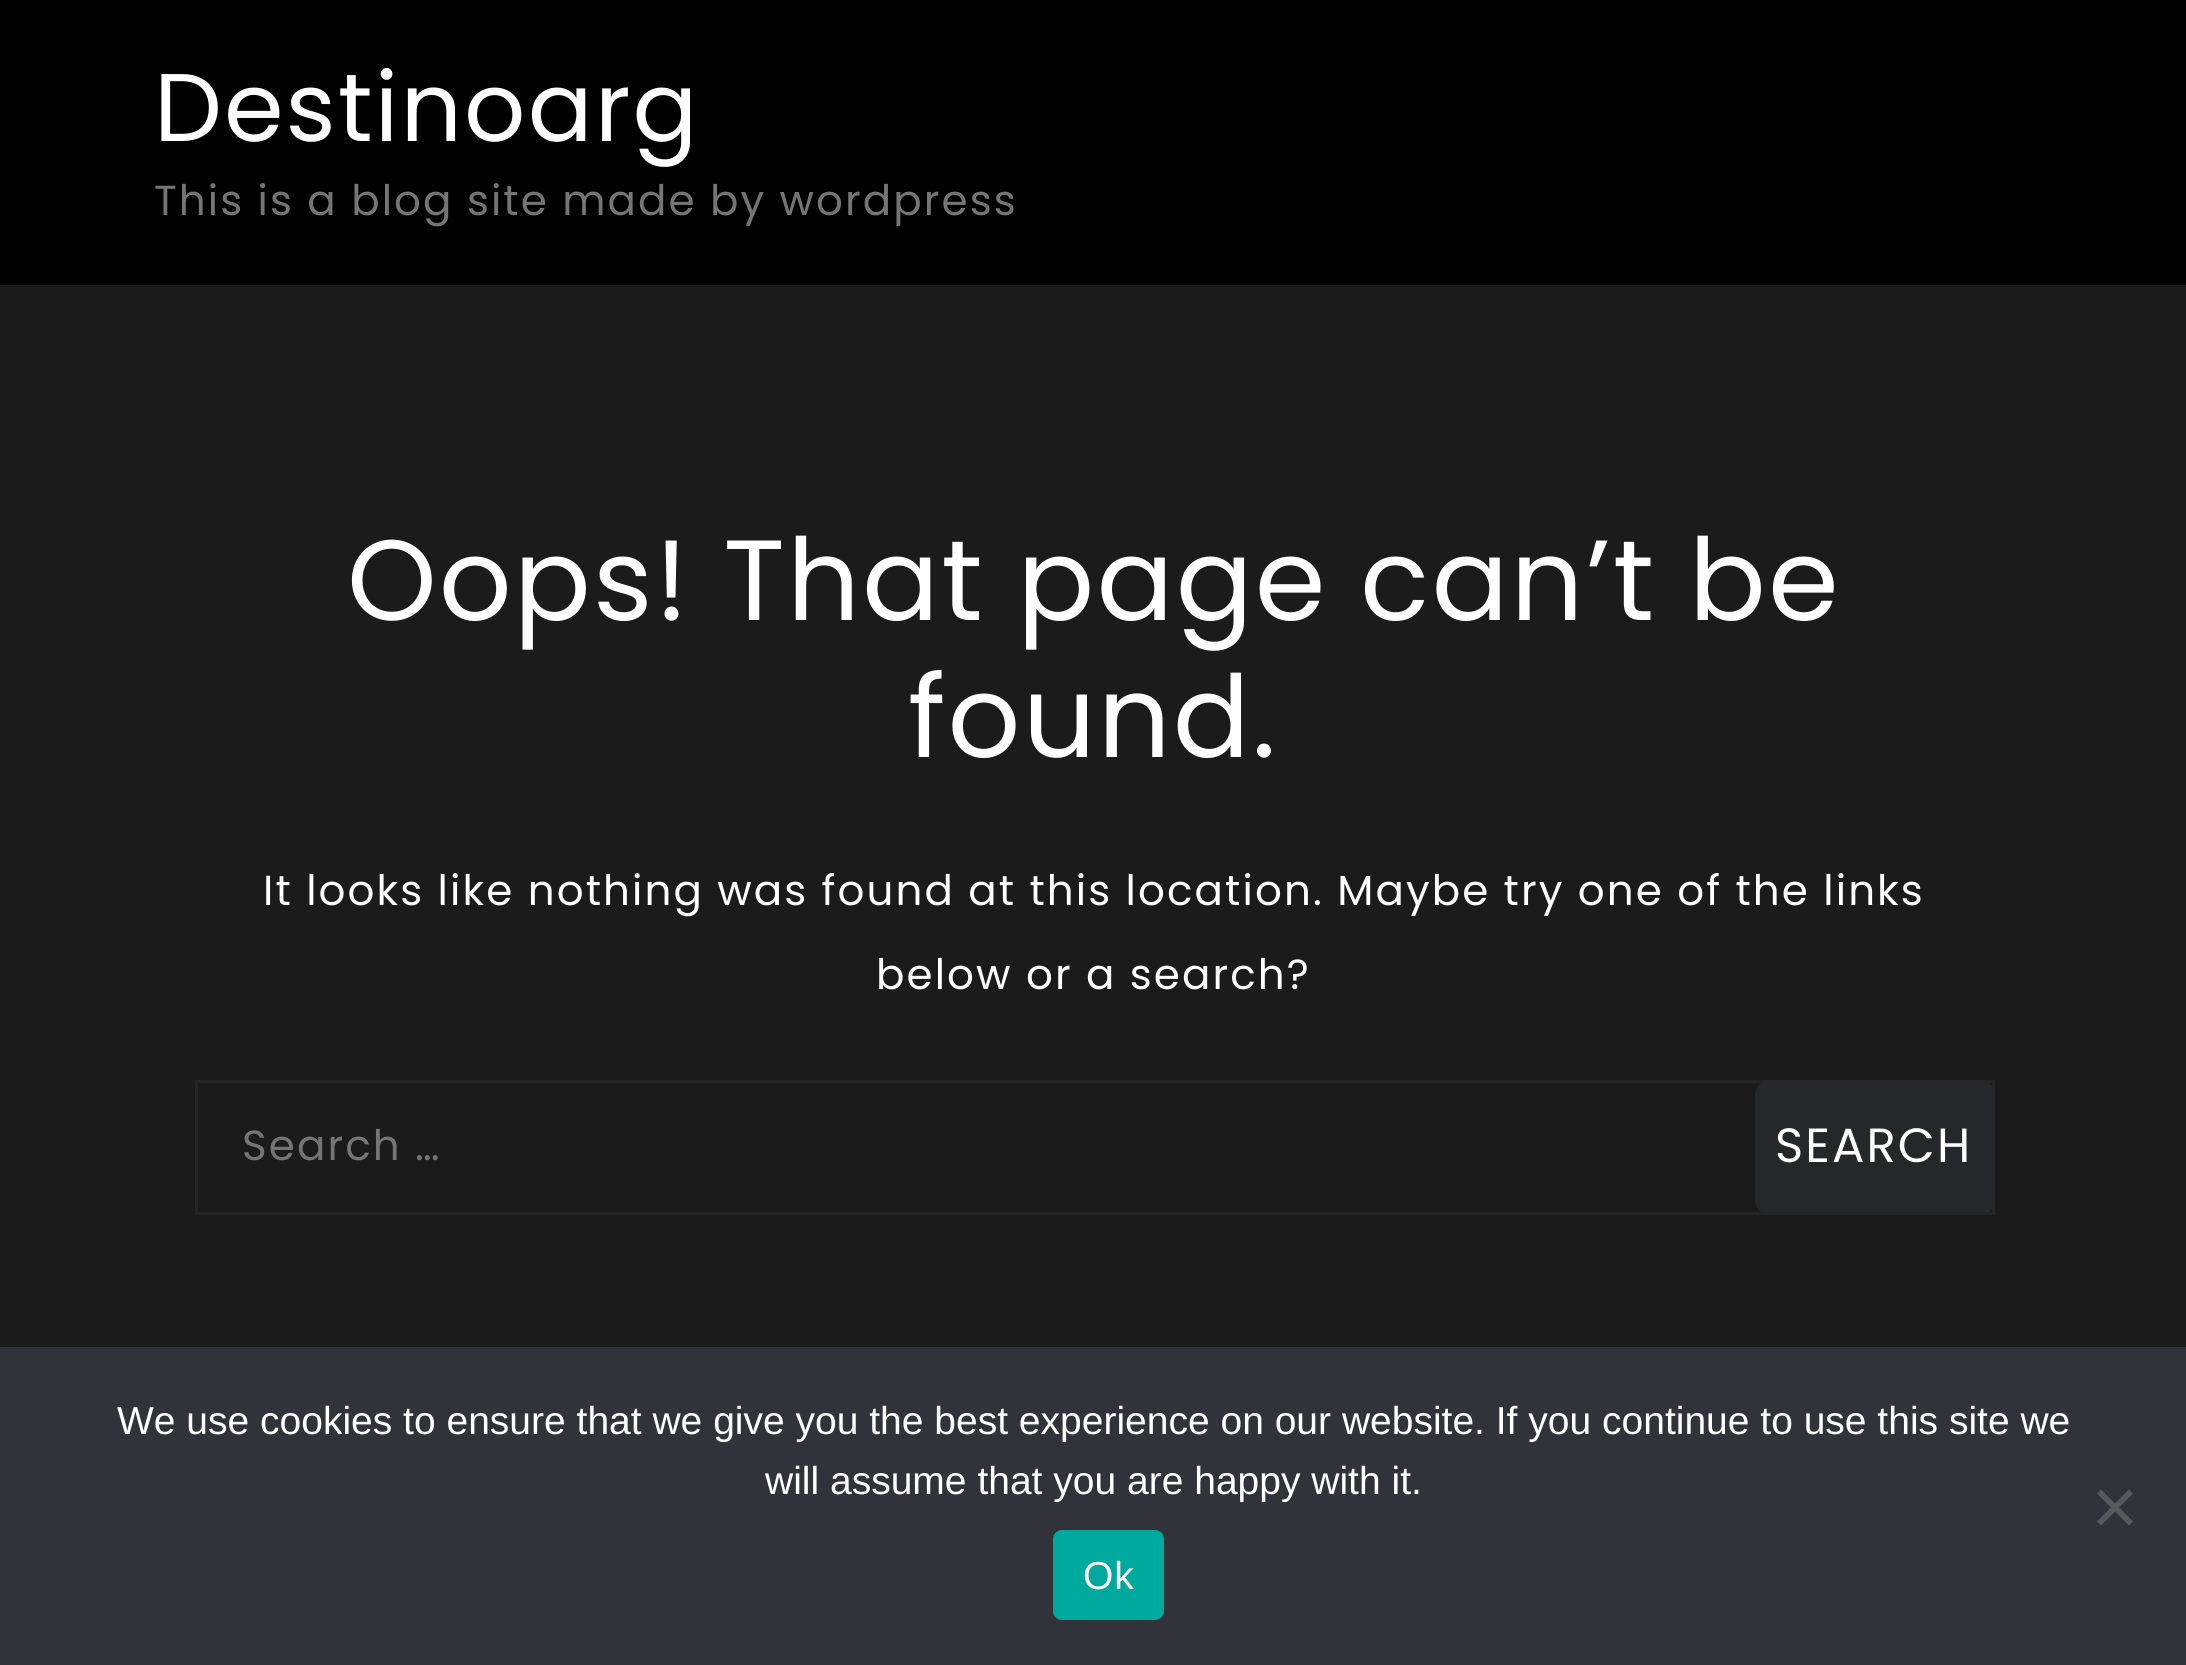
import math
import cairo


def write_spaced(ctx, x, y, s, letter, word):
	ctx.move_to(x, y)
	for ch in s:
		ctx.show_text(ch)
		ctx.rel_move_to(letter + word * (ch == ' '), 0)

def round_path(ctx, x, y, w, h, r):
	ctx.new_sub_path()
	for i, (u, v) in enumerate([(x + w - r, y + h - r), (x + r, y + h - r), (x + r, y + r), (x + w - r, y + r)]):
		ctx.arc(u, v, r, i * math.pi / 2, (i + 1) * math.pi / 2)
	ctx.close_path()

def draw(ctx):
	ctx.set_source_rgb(0.106, 0.106, 0.106)
	ctx.paint()
	ctx.set_source_rgb(0, 0, 0)
	ctx.rectangle(0, 0, 2186, 279)
	ctx.fill()
	ctx.set_source_rgb(0.012, 0.012, 0.012)
	ctx.rectangle(0, 279, 2186, 6)
	ctx.fill()
	ctx.select_font_face('Poppins')
	ctx.set_font_size(96)
	ctx.set_source_rgb(1, 1, 1)
	write_spaced(ctx, 154, 141, 'Destinoarg', 2.1, 0)
	ctx.set_font_size(42)
	ctx.set_source_rgb(0.459, 0.459, 0.459)
	write_spaced(ctx, 154, 215, 'This is a blog site made by wordpress', 2.1, 0)
	ctx.set_font_size(114)
	ctx.set_source_rgb(1, 1, 1)
	write_spaced(ctx, 347, 620, 'Oops! That page can’t be', 2.1, 0)
	write_spaced(ctx, 908, 757, 'found.', 2.1, 0)
	ctx.set_font_size(42)
	write_spaced(ctx, 263, 905, 'It looks like nothing was found at this location. Maybe try one of the links', 2.1, 0)
	write_spaced(ctx, 876, 989, 'below or a search?', 2.1, 0)
	ctx.rectangle(196.5, 1081.5, 1797, 132)
	ctx.set_source_rgb(0.149, 0.145, 0.145)
	ctx.set_line_width(3)
	ctx.stroke()
	ctx.set_source_rgb(0.459, 0.459, 0.459)
	write_spaced(ctx, 242, 1160, 'Search …', 2.1, 0)
	ctx.set_source_rgb(0.141, 0.157, 0.169)
	round_path(ctx, 1755, 1080, 240, 135, 15)
	ctx.fill()
	ctx.set_font_size(48)
	ctx.set_source_rgb(1, 1, 1)
	write_spaced(ctx, 1775, 1162, 'SEARCH', 2.1, 0)
	ctx.set_source_rgb(0.196, 0.196, 0.227)
	ctx.rectangle(0, 1347, 2186, 318)
	ctx.fill()
	ctx.select_font_face('Liberation Sans')
	ctx.set_font_size(39)
	ctx.set_source_rgb(1, 1, 1)
	ctx.move_to(117, 1434)
	ctx.show_text('We use cookies to ensure that we give you the best experience on our website. If you continue to use this site we')
	ctx.move_to(765, 1494)
	ctx.show_text('will assume that you are happy with it.')
	ctx.set_source_rgb(0.349, 0.349, 0.365)
	ctx.new_path()
	ctx.move_to(2129, 1489.5)
	ctx.line_to(2133, 1493.5)
	ctx.line_to(2101, 1525.5)
	ctx.line_to(2097, 1521.5)
	ctx.close_path()
	ctx.fill()
	ctx.new_path()
	ctx.move_to(2097, 1493.5)
	ctx.line_to(2101, 1489.5)
	ctx.line_to(2133, 1521.5)
	ctx.line_to(2129, 1525.5)
	ctx.close_path()
	ctx.fill()
	ctx.set_source_rgb(0, 0.663, 0.616)
	round_path(ctx, 1053, 1530, 111, 90, 9)
	ctx.fill()
	ctx.set_source_rgb(1, 1, 1)
	write_spaced(ctx, 1083, 1589, 'Ok', 1, 0)


surface = cairo.ImageSurface(cairo.FORMAT_RGB24, 2186, 1665)
ctx = cairo.Context(surface)
options = cairo.FontOptions()
options.set_hint_metrics(cairo.HINT_METRICS_OFF)
options.set_hint_style(cairo.HINT_STYLE_NONE)
ctx.set_font_options(options)
ctx.set_miter_limit(4)
draw(ctx)
surface.write_to_png('image.png')
